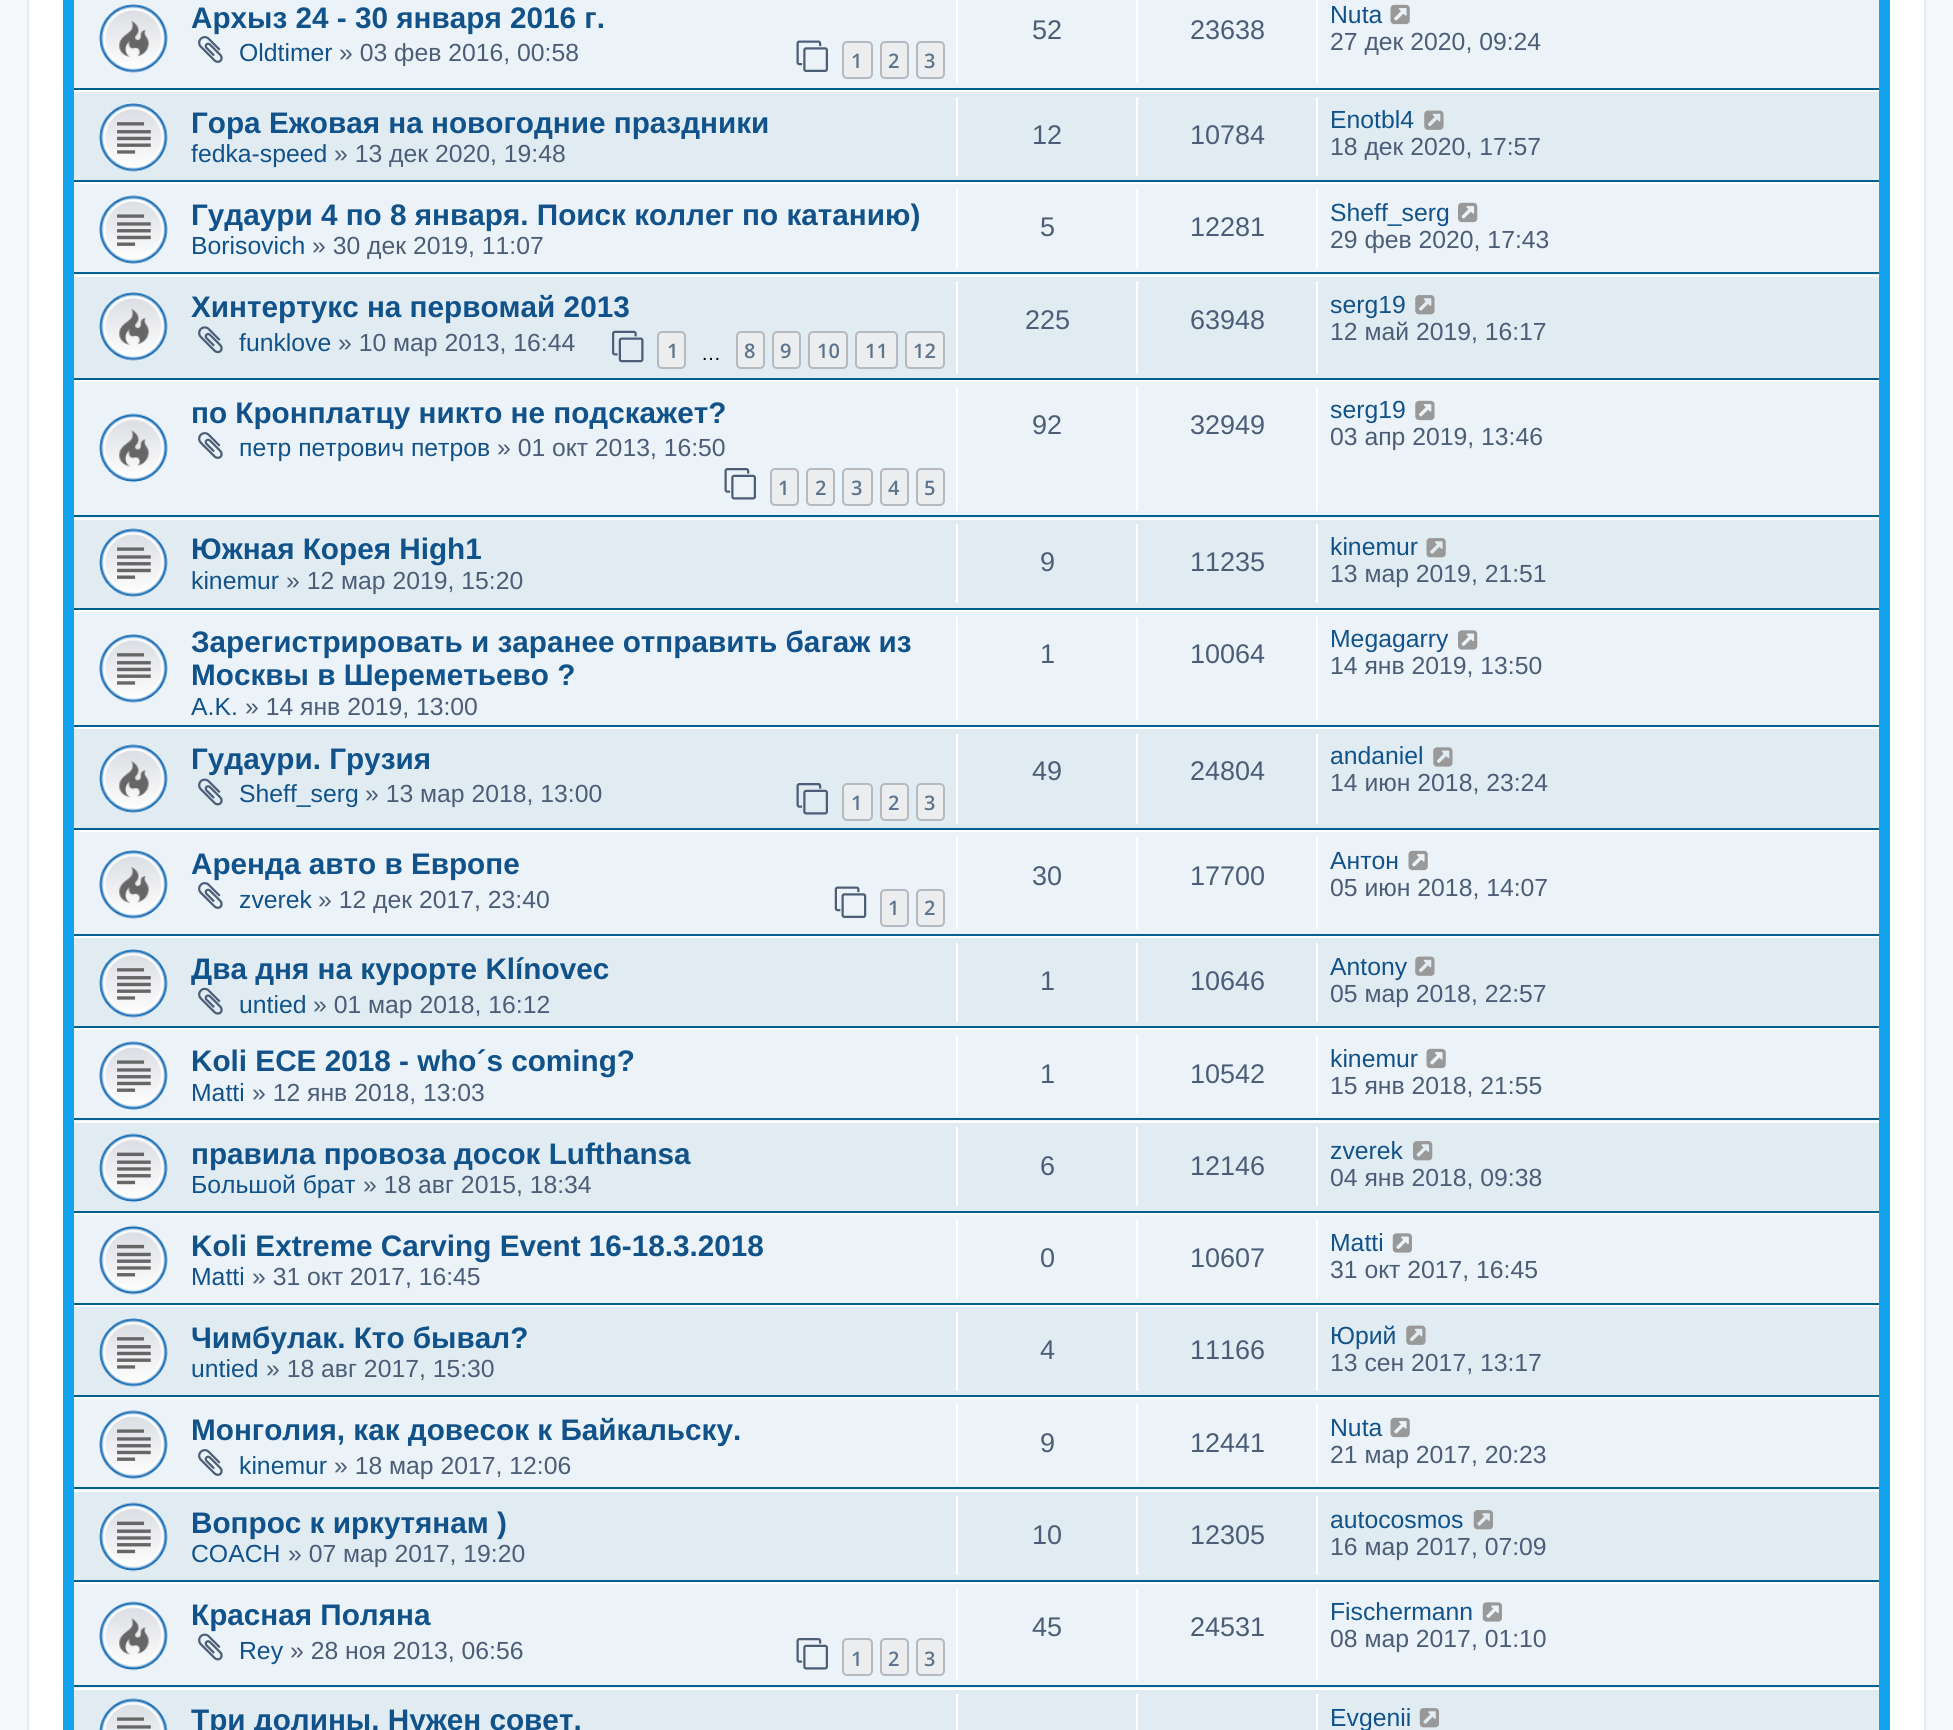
import math
import cairo


def round_path(ctx, x, y, w, h, r):
	ctx.new_sub_path()
	for i, (u, v) in enumerate([(x + w - r, y + h - r), (x + r, y + h - r), (x + r, y + r), (x + w - r, y + r)]):
		ctx.arc(u, v, r, i * math.pi / 2, (i + 1) * math.pi / 2)
	ctx.close_path()

def paste(ctx, path, x, y, w, h):
	ctx.save()
	ctx.set_source_surface(cairo.ImageSurface.create_from_png(path), x, y)
	ctx.rectangle(x, y, w, h)
	ctx.fill()
	ctx.restore()

def draw(ctx):
	ctx.set_source_rgb(0.961, 0.969, 0.98)
	ctx.paint()
	ctx.set_source_rgb(1, 1, 1)
	ctx.rectangle(28, -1, 1897, 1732)
	ctx.fill_preserve()
	ctx.set_source_rgb(0.902, 0.914, 0.929)
	ctx.stroke()
	ctx.set_source_rgb(0.071, 0.639, 0.922)
	ctx.rectangle(63, 0, 1827, 1730)
	ctx.fill()
	ctx.set_source_rgb(0.925, 0.953, 0.969)
	ctx.rectangle(74, 0, 1805, 88)
	ctx.fill()
	ctx.set_source_rgb(0, 0.376, 0.561)
	ctx.rectangle(74, 88, 1805, 2)
	ctx.fill()
	paste(ctx, 'media/1.png', 99, 4, 69, 69)
	ctx.select_font_face('Liberation Sans', cairo.FONT_SLANT_NORMAL, cairo.FONT_WEIGHT_BOLD)
	ctx.set_font_size(29.7)
	ctx.set_source_rgb(0.063, 0.322, 0.537)
	ctx.move_to(191, 28)
	ctx.show_text('Архыз 24 - 30 января 2016 г.')
	paste(ctx, 'media/2.png', 198, 36, 25, 27)
	ctx.select_font_face('Liberation Sans')
	ctx.set_font_size(24.75)
	ctx.move_to(239, 61)
	ctx.show_text('Oldtimer')
	ctx.set_source_rgb(0.298, 0.365, 0.467)
	ctx.move_to(339, 61)
	ctx.show_text('» 03 фев 2016, 00:58')
	paste(ctx, 'media/3.png', 796, 40, 32, 32)
	ctx.set_source_rgb(0.925, 0.929, 0.933)
	round_path(ctx, 843, 42, 29, 36, 4)
	ctx.fill_preserve()
	ctx.set_source_rgb(0.706, 0.729, 0.753)
	ctx.stroke()
	ctx.select_font_face('Open Sans SemiBold')
	ctx.set_font_size(20)
	ctx.set_source_rgb(0.361, 0.459, 0.549)
	ctx.move_to(851, 68)
	ctx.show_text('1')
	ctx.set_source_rgb(0.925, 0.929, 0.933)
	round_path(ctx, 881, 42, 27, 36, 4)
	ctx.fill_preserve()
	ctx.set_source_rgb(0.706, 0.729, 0.753)
	ctx.stroke()
	ctx.set_source_rgb(0.361, 0.459, 0.549)
	ctx.move_to(888, 68)
	ctx.show_text('2')
	ctx.set_source_rgb(0.925, 0.929, 0.933)
	round_path(ctx, 917, 42, 27, 36, 4)
	ctx.fill_preserve()
	ctx.set_source_rgb(0.706, 0.729, 0.753)
	ctx.stroke()
	ctx.set_source_rgb(0.361, 0.459, 0.549)
	ctx.move_to(924, 68)
	ctx.show_text('3')
	ctx.set_source_rgb(1, 1, 1)
	ctx.rectangle(956, 0, 2, 83)
	ctx.fill()
	ctx.select_font_face('Liberation Sans')
	ctx.set_font_size(27)
	ctx.set_source_rgb(0.298, 0.365, 0.467)
	ctx.move_to(1032, 39)
	ctx.show_text('52')
	ctx.set_source_rgb(1, 1, 1)
	ctx.rectangle(1136, 0, 2, 83)
	ctx.fill()
	ctx.set_source_rgb(0.298, 0.365, 0.467)
	ctx.move_to(1190, 39)
	ctx.show_text('23638')
	ctx.set_source_rgb(1, 1, 1)
	ctx.rectangle(1316, 0, 2, 83)
	ctx.fill()
	ctx.set_font_size(24.75)
	ctx.set_source_rgb(0.063, 0.322, 0.537)
	ctx.move_to(1330, 23)
	ctx.show_text('Nuta')
	paste(ctx, 'media/4.png', 1390, 4, 20, 21)
	ctx.set_source_rgb(0.298, 0.365, 0.467)
	ctx.move_to(1330, 50)
	ctx.show_text('27 дек 2020, 09:24')
	ctx.set_source_rgb(0.882, 0.922, 0.949)
	ctx.rectangle(74, 92, 1805, 88)
	ctx.fill()
	ctx.set_source_rgb(1, 1, 1)
	ctx.rectangle(74, 90, 1805, 2)
	ctx.fill()
	ctx.set_source_rgb(0, 0.376, 0.561)
	ctx.rectangle(74, 180, 1805, 2)
	ctx.fill()
	paste(ctx, 'media/5.png', 99, 103, 69, 69)
	ctx.select_font_face('Liberation Sans', cairo.FONT_SLANT_NORMAL, cairo.FONT_WEIGHT_BOLD)
	ctx.set_font_size(29.7)
	ctx.set_source_rgb(0.063, 0.322, 0.537)
	ctx.move_to(191, 133)
	ctx.show_text('Гора Ежовая на новогодние праздники')
	ctx.select_font_face('Liberation Sans')
	ctx.set_font_size(24.75)
	ctx.move_to(191, 162)
	ctx.show_text('fedka-speed')
	ctx.set_source_rgb(0.298, 0.365, 0.467)
	ctx.move_to(334, 162)
	ctx.show_text('» 13 дек 2020, 19:48')
	ctx.set_source_rgb(1, 1, 1)
	ctx.rectangle(956, 97, 2, 79)
	ctx.fill()
	ctx.set_font_size(27)
	ctx.set_source_rgb(0.298, 0.365, 0.467)
	ctx.move_to(1032, 144)
	ctx.show_text('12')
	ctx.set_source_rgb(1, 1, 1)
	ctx.rectangle(1136, 97, 2, 79)
	ctx.fill()
	ctx.set_source_rgb(0.298, 0.365, 0.467)
	ctx.move_to(1190, 144)
	ctx.show_text('10784')
	ctx.set_source_rgb(1, 1, 1)
	ctx.rectangle(1316, 97, 2, 79)
	ctx.fill()
	ctx.set_font_size(24.75)
	ctx.set_source_rgb(0.063, 0.322, 0.537)
	ctx.move_to(1330, 128)
	ctx.show_text('Enotbl4')
	paste(ctx, 'media/6.png', 1424, 110, 20, 20)
	ctx.set_source_rgb(0.298, 0.365, 0.467)
	ctx.move_to(1330, 155)
	ctx.show_text('18 дек 2020, 17:57')
	ctx.set_source_rgb(0.925, 0.953, 0.969)
	ctx.rectangle(74, 184, 1805, 91)
	ctx.fill()
	ctx.set_source_rgb(1, 1, 1)
	ctx.rectangle(74, 182, 1805, 2)
	ctx.fill()
	ctx.set_source_rgb(0, 0.376, 0.561)
	ctx.rectangle(74, 272, 1805, 2)
	ctx.fill()
	paste(ctx, 'media/7.png', 99, 195, 69, 69)
	ctx.select_font_face('Liberation Sans', cairo.FONT_SLANT_NORMAL, cairo.FONT_WEIGHT_BOLD)
	ctx.set_font_size(29.7)
	ctx.set_source_rgb(0.063, 0.322, 0.537)
	ctx.move_to(191, 225)
	ctx.show_text('Гудаури 4 по 8 января. Поиск коллег по катанию)')
	ctx.select_font_face('Liberation Sans')
	ctx.set_font_size(24.75)
	ctx.move_to(191, 254)
	ctx.show_text('Borisovich')
	ctx.set_source_rgb(0.298, 0.365, 0.467)
	ctx.move_to(312, 254)
	ctx.show_text('» 30 дек 2019, 11:07')
	ctx.set_source_rgb(1, 1, 1)
	ctx.rectangle(956, 189, 2, 79)
	ctx.fill()
	ctx.set_font_size(27)
	ctx.set_source_rgb(0.298, 0.365, 0.467)
	ctx.move_to(1040, 236)
	ctx.show_text('5')
	ctx.set_source_rgb(1, 1, 1)
	ctx.rectangle(1136, 189, 2, 79)
	ctx.fill()
	ctx.set_source_rgb(0.298, 0.365, 0.467)
	ctx.move_to(1190, 236)
	ctx.show_text('12281')
	ctx.set_source_rgb(1, 1, 1)
	ctx.rectangle(1316, 189, 2, 79)
	ctx.fill()
	ctx.set_font_size(24.75)
	ctx.set_source_rgb(0.063, 0.322, 0.537)
	ctx.move_to(1330, 221)
	ctx.show_text('Sheff_serg')
	paste(ctx, 'media/8.png', 1458, 202, 20, 21)
	ctx.set_source_rgb(0.298, 0.365, 0.467)
	ctx.move_to(1330, 248)
	ctx.show_text('29 фев 2020, 17:43')
	ctx.set_source_rgb(0.882, 0.922, 0.949)
	ctx.rectangle(74, 277, 1805, 101)
	ctx.fill()
	ctx.set_source_rgb(1, 1, 1)
	ctx.rectangle(74, 275, 1805, 2)
	ctx.fill()
	ctx.set_source_rgb(0, 0.376, 0.561)
	ctx.rectangle(74, 378, 1805, 2)
	ctx.fill()
	paste(ctx, 'media/9.png', 99, 292, 69, 69)
	ctx.select_font_face('Liberation Sans', cairo.FONT_SLANT_NORMAL, cairo.FONT_WEIGHT_BOLD)
	ctx.set_font_size(29.7)
	ctx.set_source_rgb(0.063, 0.322, 0.537)
	ctx.move_to(191, 317)
	ctx.show_text('Хинтертукс на первомай 2013')
	paste(ctx, 'media/10.png', 198, 326, 25, 28)
	ctx.select_font_face('Liberation Sans')
	ctx.set_font_size(24.75)
	ctx.move_to(239, 351)
	ctx.show_text('funklove')
	ctx.set_source_rgb(0.298, 0.365, 0.467)
	ctx.move_to(338, 351)
	ctx.show_text('» 10 мар 2013, 16:44')
	paste(ctx, 'media/11.png', 612, 330, 32, 33)
	ctx.set_source_rgb(0.925, 0.929, 0.933)
	round_path(ctx, 658, 332, 27, 36, 4)
	ctx.fill_preserve()
	ctx.set_source_rgb(0.706, 0.729, 0.753)
	ctx.stroke()
	ctx.select_font_face('Open Sans SemiBold')
	ctx.set_font_size(20)
	ctx.set_source_rgb(0.361, 0.459, 0.549)
	ctx.move_to(667, 358)
	ctx.show_text('1')
	ctx.set_source_rgb(0.925, 0.929, 0.933)
	round_path(ctx, 737, 332, 27, 36, 4)
	ctx.fill_preserve()
	ctx.set_source_rgb(0.706, 0.729, 0.753)
	ctx.stroke()
	ctx.set_source_rgb(0.361, 0.459, 0.549)
	ctx.move_to(744, 358)
	ctx.show_text('8')
	ctx.set_source_rgb(0.925, 0.929, 0.933)
	round_path(ctx, 773, 332, 27, 36, 4)
	ctx.fill_preserve()
	ctx.set_source_rgb(0.706, 0.729, 0.753)
	ctx.stroke()
	ctx.set_source_rgb(0.361, 0.459, 0.549)
	ctx.move_to(780, 358)
	ctx.show_text('9')
	ctx.set_source_rgb(0.925, 0.929, 0.933)
	round_path(ctx, 809, 332, 38, 36, 4)
	ctx.fill_preserve()
	ctx.set_source_rgb(0.706, 0.729, 0.753)
	ctx.stroke()
	ctx.set_source_rgb(0.361, 0.459, 0.549)
	ctx.move_to(817, 358)
	ctx.show_text('10')
	ctx.set_source_rgb(0.925, 0.929, 0.933)
	round_path(ctx, 856, 332, 41, 36, 4)
	ctx.fill_preserve()
	ctx.set_source_rgb(0.706, 0.729, 0.753)
	ctx.stroke()
	ctx.set_source_rgb(0.361, 0.459, 0.549)
	ctx.move_to(865, 358)
	ctx.show_text('11')
	ctx.set_source_rgb(0.925, 0.929, 0.933)
	round_path(ctx, 906, 332, 38, 36, 4)
	ctx.fill_preserve()
	ctx.set_source_rgb(0.706, 0.729, 0.753)
	ctx.stroke()
	ctx.set_source_rgb(0.361, 0.459, 0.549)
	ctx.move_to(913, 358)
	ctx.show_text('12')
	ctx.select_font_face('Liberation Sans')
	ctx.set_source_rgb(0, 0, 0)
	ctx.move_to(701, 360)
	ctx.show_text('…')
	ctx.set_source_rgb(1, 1, 1)
	ctx.rectangle(956, 281, 2, 93)
	ctx.fill()
	ctx.set_font_size(27)
	ctx.set_source_rgb(0.298, 0.365, 0.467)
	ctx.move_to(1025, 329)
	ctx.show_text('225')
	ctx.set_source_rgb(1, 1, 1)
	ctx.rectangle(1136, 281, 2, 93)
	ctx.fill()
	ctx.set_source_rgb(0.298, 0.365, 0.467)
	ctx.move_to(1190, 329)
	ctx.show_text('63948')
	ctx.set_source_rgb(1, 1, 1)
	ctx.rectangle(1316, 281, 2, 93)
	ctx.fill()
	ctx.set_font_size(24.75)
	ctx.set_source_rgb(0.063, 0.322, 0.537)
	ctx.move_to(1330, 313)
	ctx.show_text('serg19')
	paste(ctx, 'media/12.png', 1415, 295, 20, 20)
	ctx.set_source_rgb(0.298, 0.365, 0.467)
	ctx.move_to(1330, 340)
	ctx.show_text('12 май 2019, 16:17')
	ctx.set_source_rgb(0.925, 0.953, 0.969)
	ctx.rectangle(74, 382, 1805, 136)
	ctx.fill()
	ctx.set_source_rgb(1, 1, 1)
	ctx.rectangle(74, 380, 1805, 2)
	ctx.fill()
	ctx.set_source_rgb(0, 0.376, 0.561)
	ctx.rectangle(74, 515, 1805, 2)
	ctx.fill()
	paste(ctx, 'media/13.png', 99, 413, 69, 70)
	ctx.select_font_face('Liberation Sans', cairo.FONT_SLANT_NORMAL, cairo.FONT_WEIGHT_BOLD)
	ctx.set_font_size(29.7)
	ctx.set_source_rgb(0.063, 0.322, 0.537)
	ctx.move_to(191, 423)
	ctx.show_text('по Кронплатцу никто не подскажет?')
	paste(ctx, 'media/2.png', 198, 432, 25, 27)
	ctx.select_font_face('Liberation Sans')
	ctx.set_font_size(24.75)
	ctx.move_to(239, 456)
	ctx.show_text('петр петрович петров')
	ctx.set_source_rgb(0.298, 0.365, 0.467)
	ctx.move_to(497, 456)
	ctx.show_text('» 01 окт 2013, 16:50')
	paste(ctx, 'media/14.png', 724, 468, 32, 32)
	ctx.set_source_rgb(0.925, 0.929, 0.933)
	round_path(ctx, 771, 469, 27, 36, 4)
	ctx.fill_preserve()
	ctx.set_source_rgb(0.706, 0.729, 0.753)
	ctx.stroke()
	ctx.select_font_face('Open Sans SemiBold')
	ctx.set_font_size(20)
	ctx.set_source_rgb(0.361, 0.459, 0.549)
	ctx.move_to(778, 495)
	ctx.show_text('1')
	ctx.set_source_rgb(0.925, 0.929, 0.933)
	round_path(ctx, 807, 469, 27, 36, 4)
	ctx.fill_preserve()
	ctx.set_source_rgb(0.706, 0.729, 0.753)
	ctx.stroke()
	ctx.set_source_rgb(0.361, 0.459, 0.549)
	ctx.move_to(815, 495)
	ctx.show_text('2')
	ctx.set_source_rgb(0.925, 0.929, 0.933)
	round_path(ctx, 843, 469, 29, 36, 4)
	ctx.fill_preserve()
	ctx.set_source_rgb(0.706, 0.729, 0.753)
	ctx.stroke()
	ctx.set_source_rgb(0.361, 0.459, 0.549)
	ctx.move_to(851, 495)
	ctx.show_text('3')
	ctx.set_source_rgb(0.925, 0.929, 0.933)
	round_path(ctx, 881, 469, 27, 36, 4)
	ctx.fill_preserve()
	ctx.set_source_rgb(0.706, 0.729, 0.753)
	ctx.stroke()
	ctx.set_source_rgb(0.361, 0.459, 0.549)
	ctx.move_to(888, 495)
	ctx.show_text('4')
	ctx.set_source_rgb(0.925, 0.929, 0.933)
	round_path(ctx, 917, 469, 27, 36, 4)
	ctx.fill_preserve()
	ctx.set_source_rgb(0.706, 0.729, 0.753)
	ctx.stroke()
	ctx.set_source_rgb(0.361, 0.459, 0.549)
	ctx.move_to(924, 495)
	ctx.show_text('5')
	ctx.set_source_rgb(1, 1, 1)
	ctx.rectangle(956, 387, 2, 124)
	ctx.fill()
	ctx.select_font_face('Liberation Sans')
	ctx.set_font_size(27)
	ctx.set_source_rgb(0.298, 0.365, 0.467)
	ctx.move_to(1032, 434)
	ctx.show_text('92')
	ctx.set_source_rgb(1, 1, 1)
	ctx.rectangle(1136, 387, 2, 124)
	ctx.fill()
	ctx.set_source_rgb(0.298, 0.365, 0.467)
	ctx.move_to(1190, 434)
	ctx.show_text('32949')
	ctx.set_source_rgb(1, 1, 1)
	ctx.rectangle(1316, 387, 2, 124)
	ctx.fill()
	ctx.set_font_size(24.75)
	ctx.set_source_rgb(0.063, 0.322, 0.537)
	ctx.move_to(1330, 418)
	ctx.show_text('serg19')
	paste(ctx, 'media/15.png', 1415, 400, 20, 21)
	ctx.set_source_rgb(0.298, 0.365, 0.467)
	ctx.move_to(1330, 445)
	ctx.show_text('03 апр 2019, 13:46')
	ctx.set_source_rgb(0.882, 0.922, 0.949)
	ctx.rectangle(74, 520, 1805, 88)
	ctx.fill()
	ctx.set_source_rgb(1, 1, 1)
	ctx.rectangle(74, 518, 1805, 2)
	ctx.fill()
	ctx.set_source_rgb(0, 0.376, 0.561)
	ctx.rectangle(74, 608, 1805, 2)
	ctx.fill()
	paste(ctx, 'media/16.png', 99, 528, 69, 69)
	ctx.select_font_face('Liberation Sans', cairo.FONT_SLANT_NORMAL, cairo.FONT_WEIGHT_BOLD)
	ctx.set_font_size(29.7)
	ctx.set_source_rgb(0.063, 0.322, 0.537)
	ctx.move_to(191, 559)
	ctx.show_text('Южная Корея High1')
	ctx.select_font_face('Liberation Sans')
	ctx.set_font_size(24.75)
	ctx.move_to(191, 589)
	ctx.show_text('kinemur')
	ctx.set_source_rgb(0.298, 0.365, 0.467)
	ctx.move_to(286, 589)
	ctx.show_text('» 12 мар 2019, 15:20')
	ctx.set_source_rgb(1, 1, 1)
	ctx.rectangle(956, 524, 2, 79)
	ctx.fill()
	ctx.set_font_size(27)
	ctx.set_source_rgb(0.298, 0.365, 0.467)
	ctx.move_to(1040, 571)
	ctx.show_text('9')
	ctx.set_source_rgb(1, 1, 1)
	ctx.rectangle(1136, 524, 2, 79)
	ctx.fill()
	ctx.set_source_rgb(0.298, 0.365, 0.467)
	ctx.move_to(1190, 571)
	ctx.show_text('11235')
	ctx.set_source_rgb(1, 1, 1)
	ctx.rectangle(1316, 524, 2, 79)
	ctx.fill()
	ctx.set_font_size(24.75)
	ctx.set_source_rgb(0.063, 0.322, 0.537)
	ctx.move_to(1330, 555)
	ctx.show_text('kinemur')
	paste(ctx, 'media/17.png', 1426, 538, 20, 20)
	ctx.set_source_rgb(0.298, 0.365, 0.467)
	ctx.move_to(1330, 582)
	ctx.show_text('13 мар 2019, 21:51')
	ctx.set_source_rgb(0.925, 0.953, 0.969)
	ctx.rectangle(74, 612, 1805, 113)
	ctx.fill()
	ctx.set_source_rgb(1, 1, 1)
	ctx.rectangle(74, 610, 1805, 2)
	ctx.fill()
	ctx.set_source_rgb(0, 0.376, 0.561)
	ctx.rectangle(74, 725, 1805, 2)
	ctx.fill()
	paste(ctx, 'media/18.png', 99, 634, 69, 69)
	ctx.select_font_face('Liberation Sans', cairo.FONT_SLANT_NORMAL, cairo.FONT_WEIGHT_BOLD)
	ctx.set_font_size(29.7)
	ctx.set_source_rgb(0.063, 0.322, 0.537)
	ctx.move_to(191, 652)
	ctx.show_text('Зарегистрировать и заранее отправить багаж из')
	ctx.move_to(191, 685)
	ctx.show_text('Москвы в Шереметьево ?')
	ctx.select_font_face('Liberation Sans')
	ctx.set_font_size(24.75)
	ctx.move_to(191, 715)
	ctx.show_text('A.K.')
	ctx.set_source_rgb(0.298, 0.365, 0.467)
	ctx.move_to(245, 715)
	ctx.show_text('» 14 янв 2019, 13:00')
	ctx.set_source_rgb(1, 1, 1)
	ctx.rectangle(956, 617, 2, 103)
	ctx.fill()
	ctx.set_font_size(27)
	ctx.set_source_rgb(0.298, 0.365, 0.467)
	ctx.move_to(1040, 663)
	ctx.show_text('1')
	ctx.set_source_rgb(1, 1, 1)
	ctx.rectangle(1136, 617, 2, 103)
	ctx.fill()
	ctx.set_source_rgb(0.298, 0.365, 0.467)
	ctx.move_to(1190, 663)
	ctx.show_text('10064')
	ctx.set_source_rgb(1, 1, 1)
	ctx.rectangle(1316, 617, 2, 103)
	ctx.fill()
	ctx.set_font_size(24.75)
	ctx.set_source_rgb(0.063, 0.322, 0.537)
	ctx.move_to(1330, 647)
	ctx.show_text('Megagarry')
	paste(ctx, 'media/19.png', 1458, 630, 20, 20)
	ctx.set_source_rgb(0.298, 0.365, 0.467)
	ctx.move_to(1330, 674)
	ctx.show_text('14 янв 2019, 13:50')
	ctx.set_source_rgb(0.882, 0.922, 0.949)
	ctx.rectangle(74, 729, 1805, 99)
	ctx.fill()
	ctx.set_source_rgb(1, 1, 1)
	ctx.rectangle(74, 727, 1805, 2)
	ctx.fill()
	ctx.set_source_rgb(0, 0.376, 0.561)
	ctx.rectangle(74, 828, 1805, 2)
	ctx.fill()
	paste(ctx, 'media/20.png', 99, 744, 69, 69)
	ctx.select_font_face('Liberation Sans', cairo.FONT_SLANT_NORMAL, cairo.FONT_WEIGHT_BOLD)
	ctx.set_font_size(29.7)
	ctx.set_source_rgb(0.063, 0.322, 0.537)
	ctx.move_to(191, 769)
	ctx.show_text('Гудаури. Грузия')
	paste(ctx, 'media/21.png', 198, 778, 25, 28)
	ctx.select_font_face('Liberation Sans')
	ctx.set_font_size(24.75)
	ctx.move_to(239, 802)
	ctx.show_text('Sheff_serg')
	ctx.set_source_rgb(0.298, 0.365, 0.467)
	ctx.move_to(365, 802)
	ctx.show_text('» 13 мар 2018, 13:00')
	paste(ctx, 'media/22.png', 796, 783, 32, 32)
	ctx.set_source_rgb(0.925, 0.929, 0.933)
	round_path(ctx, 843, 784, 29, 36, 4)
	ctx.fill_preserve()
	ctx.set_source_rgb(0.706, 0.729, 0.753)
	ctx.stroke()
	ctx.select_font_face('Open Sans SemiBold')
	ctx.set_font_size(20)
	ctx.set_source_rgb(0.361, 0.459, 0.549)
	ctx.move_to(851, 810)
	ctx.show_text('1')
	ctx.set_source_rgb(0.925, 0.929, 0.933)
	round_path(ctx, 881, 784, 27, 36, 4)
	ctx.fill_preserve()
	ctx.set_source_rgb(0.706, 0.729, 0.753)
	ctx.stroke()
	ctx.set_source_rgb(0.361, 0.459, 0.549)
	ctx.move_to(888, 810)
	ctx.show_text('2')
	ctx.set_source_rgb(0.925, 0.929, 0.933)
	round_path(ctx, 917, 784, 27, 36, 4)
	ctx.fill_preserve()
	ctx.set_source_rgb(0.706, 0.729, 0.753)
	ctx.stroke()
	ctx.set_source_rgb(0.361, 0.459, 0.549)
	ctx.move_to(924, 810)
	ctx.show_text('3')
	ctx.set_source_rgb(1, 1, 1)
	ctx.rectangle(956, 734, 2, 90)
	ctx.fill()
	ctx.select_font_face('Liberation Sans')
	ctx.set_font_size(27)
	ctx.set_source_rgb(0.298, 0.365, 0.467)
	ctx.move_to(1032, 780)
	ctx.show_text('49')
	ctx.set_source_rgb(1, 1, 1)
	ctx.rectangle(1136, 734, 2, 90)
	ctx.fill()
	ctx.set_source_rgb(0.298, 0.365, 0.467)
	ctx.move_to(1190, 780)
	ctx.show_text('24804')
	ctx.set_source_rgb(1, 1, 1)
	ctx.rectangle(1316, 734, 2, 90)
	ctx.fill()
	ctx.set_font_size(24.75)
	ctx.set_source_rgb(0.063, 0.322, 0.537)
	ctx.move_to(1330, 764)
	ctx.show_text('andaniel')
	paste(ctx, 'media/23.png', 1433, 747, 20, 20)
	ctx.set_source_rgb(0.298, 0.365, 0.467)
	ctx.move_to(1330, 791)
	ctx.show_text('14 июн 2018, 23:24')
	ctx.set_source_rgb(0.925, 0.953, 0.969)
	ctx.rectangle(74, 832, 1805, 102)
	ctx.fill()
	ctx.set_source_rgb(1, 1, 1)
	ctx.rectangle(74, 830, 1805, 2)
	ctx.fill()
	ctx.set_source_rgb(0, 0.376, 0.561)
	ctx.rectangle(74, 934, 1805, 2)
	ctx.fill()
	paste(ctx, 'media/1.png', 99, 850, 69, 69)
	ctx.select_font_face('Liberation Sans', cairo.FONT_SLANT_NORMAL, cairo.FONT_WEIGHT_BOLD)
	ctx.set_font_size(29.7)
	ctx.set_source_rgb(0.063, 0.322, 0.537)
	ctx.move_to(191, 874)
	ctx.show_text('Аренда авто в Европе')
	paste(ctx, 'media/2.png', 198, 882, 25, 27)
	ctx.select_font_face('Liberation Sans')
	ctx.set_font_size(24.75)
	ctx.move_to(239, 908)
	ctx.show_text('zverek')
	ctx.set_source_rgb(0.298, 0.365, 0.467)
	ctx.move_to(318, 908)
	ctx.show_text('» 12 дек 2017, 23:40')
	paste(ctx, 'media/24.png', 834, 886, 33, 32)
	ctx.set_source_rgb(0.925, 0.929, 0.933)
	round_path(ctx, 881, 890, 27, 36, 4)
	ctx.fill_preserve()
	ctx.set_source_rgb(0.706, 0.729, 0.753)
	ctx.stroke()
	ctx.select_font_face('Open Sans SemiBold')
	ctx.set_font_size(20)
	ctx.set_source_rgb(0.361, 0.459, 0.549)
	ctx.move_to(888, 915)
	ctx.show_text('1')
	ctx.set_source_rgb(0.925, 0.929, 0.933)
	round_path(ctx, 917, 890, 27, 36, 4)
	ctx.fill_preserve()
	ctx.set_source_rgb(0.706, 0.729, 0.753)
	ctx.stroke()
	ctx.set_source_rgb(0.361, 0.459, 0.549)
	ctx.move_to(924, 915)
	ctx.show_text('2')
	ctx.set_source_rgb(1, 1, 1)
	ctx.rectangle(956, 837, 2, 92)
	ctx.fill()
	ctx.select_font_face('Liberation Sans')
	ctx.set_font_size(27)
	ctx.set_source_rgb(0.298, 0.365, 0.467)
	ctx.move_to(1032, 885)
	ctx.show_text('30')
	ctx.set_source_rgb(1, 1, 1)
	ctx.rectangle(1136, 837, 2, 92)
	ctx.fill()
	ctx.set_source_rgb(0.298, 0.365, 0.467)
	ctx.move_to(1190, 885)
	ctx.show_text('17700')
	ctx.set_source_rgb(1, 1, 1)
	ctx.rectangle(1316, 837, 2, 92)
	ctx.fill()
	ctx.set_font_size(24.75)
	ctx.set_source_rgb(0.063, 0.322, 0.537)
	ctx.move_to(1330, 869)
	ctx.show_text('Антон')
	paste(ctx, 'media/4.png', 1408, 850, 20, 21)
	ctx.set_source_rgb(0.298, 0.365, 0.467)
	ctx.move_to(1330, 896)
	ctx.show_text('05 июн 2018, 14:07')
	ctx.set_source_rgb(0.882, 0.922, 0.949)
	ctx.rectangle(74, 938, 1805, 88)
	ctx.fill()
	ctx.set_source_rgb(1, 1, 1)
	ctx.rectangle(74, 936, 1805, 2)
	ctx.fill()
	ctx.set_source_rgb(0, 0.376, 0.561)
	ctx.rectangle(74, 1026, 1805, 2)
	ctx.fill()
	paste(ctx, 'media/5.png', 99, 949, 69, 69)
	ctx.select_font_face('Liberation Sans', cairo.FONT_SLANT_NORMAL, cairo.FONT_WEIGHT_BOLD)
	ctx.set_font_size(29.7)
	ctx.set_source_rgb(0.063, 0.322, 0.537)
	ctx.move_to(191, 979)
	ctx.show_text('Два дня на курорте Klínovec')
	paste(ctx, 'media/25.png', 198, 987, 25, 28)
	ctx.select_font_face('Liberation Sans')
	ctx.set_font_size(24.75)
	ctx.move_to(239, 1013)
	ctx.show_text('untied')
	ctx.set_source_rgb(0.298, 0.365, 0.467)
	ctx.move_to(313, 1013)
	ctx.show_text('» 01 мар 2018, 16:12')
	ctx.set_source_rgb(1, 1, 1)
	ctx.rectangle(956, 943, 2, 79)
	ctx.fill()
	ctx.set_font_size(27)
	ctx.set_source_rgb(0.298, 0.365, 0.467)
	ctx.move_to(1040, 990)
	ctx.show_text('1')
	ctx.set_source_rgb(1, 1, 1)
	ctx.rectangle(1136, 943, 2, 79)
	ctx.fill()
	ctx.set_source_rgb(0.298, 0.365, 0.467)
	ctx.move_to(1190, 990)
	ctx.show_text('10646')
	ctx.set_source_rgb(1, 1, 1)
	ctx.rectangle(1316, 943, 2, 79)
	ctx.fill()
	ctx.set_font_size(24.75)
	ctx.set_source_rgb(0.063, 0.322, 0.537)
	ctx.move_to(1330, 975)
	ctx.show_text('Antony')
	paste(ctx, 'media/6.png', 1415, 956, 20, 20)
	ctx.set_source_rgb(0.298, 0.365, 0.467)
	ctx.move_to(1330, 1002)
	ctx.show_text('05 мар 2018, 22:57')
	ctx.set_source_rgb(0.925, 0.953, 0.969)
	ctx.rectangle(74, 1030, 1805, 91)
	ctx.fill()
	ctx.set_source_rgb(1, 1, 1)
	ctx.rectangle(74, 1028, 1805, 2)
	ctx.fill()
	ctx.set_source_rgb(0, 0.376, 0.561)
	ctx.rectangle(74, 1118, 1805, 2)
	ctx.fill()
	paste(ctx, 'media/26.png', 99, 1041, 69, 69)
	ctx.select_font_face('Liberation Sans', cairo.FONT_SLANT_NORMAL, cairo.FONT_WEIGHT_BOLD)
	ctx.set_font_size(29.7)
	ctx.set_source_rgb(0.063, 0.322, 0.537)
	ctx.move_to(191, 1071)
	ctx.show_text('Koli ECE 2018 - who´s coming?')
	ctx.select_font_face('Liberation Sans')
	ctx.set_font_size(24.75)
	ctx.move_to(191, 1101)
	ctx.show_text('Matti')
	ctx.set_source_rgb(0.298, 0.365, 0.467)
	ctx.move_to(252, 1101)
	ctx.show_text('» 12 янв 2018, 13:03')
	ctx.set_source_rgb(1, 1, 1)
	ctx.rectangle(956, 1035, 2, 79)
	ctx.fill()
	ctx.set_font_size(27)
	ctx.set_source_rgb(0.298, 0.365, 0.467)
	ctx.move_to(1040, 1083)
	ctx.show_text('1')
	ctx.set_source_rgb(1, 1, 1)
	ctx.rectangle(1136, 1035, 2, 79)
	ctx.fill()
	ctx.set_source_rgb(0.298, 0.365, 0.467)
	ctx.move_to(1190, 1083)
	ctx.show_text('10542')
	ctx.set_source_rgb(1, 1, 1)
	ctx.rectangle(1316, 1035, 2, 79)
	ctx.fill()
	ctx.set_font_size(24.75)
	ctx.set_source_rgb(0.063, 0.322, 0.537)
	ctx.move_to(1330, 1067)
	ctx.show_text('kinemur')
	paste(ctx, 'media/4.png', 1426, 1048, 20, 21)
	ctx.set_source_rgb(0.298, 0.365, 0.467)
	ctx.move_to(1330, 1094)
	ctx.show_text('15 янв 2018, 21:55')
	ctx.set_source_rgb(0.882, 0.922, 0.949)
	ctx.rectangle(74, 1123, 1805, 88)
	ctx.fill()
	ctx.set_source_rgb(1, 1, 1)
	ctx.rectangle(74, 1121, 1805, 2)
	ctx.fill()
	ctx.set_source_rgb(0, 0.376, 0.561)
	ctx.rectangle(74, 1211, 1805, 2)
	ctx.fill()
	paste(ctx, 'media/27.png', 99, 1133, 69, 70)
	ctx.select_font_face('Liberation Sans', cairo.FONT_SLANT_NORMAL, cairo.FONT_WEIGHT_BOLD)
	ctx.set_font_size(29.7)
	ctx.set_source_rgb(0.063, 0.322, 0.537)
	ctx.move_to(191, 1164)
	ctx.show_text('правила провоза досок Lufthansa')
	ctx.select_font_face('Liberation Sans')
	ctx.set_font_size(24.75)
	ctx.move_to(191, 1193)
	ctx.show_text('Большой брат')
	ctx.set_source_rgb(0.298, 0.365, 0.467)
	ctx.move_to(363, 1193)
	ctx.show_text('» 18 авг 2015, 18:34')
	ctx.set_source_rgb(1, 1, 1)
	ctx.rectangle(956, 1127, 2, 79)
	ctx.fill()
	ctx.set_font_size(27)
	ctx.set_source_rgb(0.298, 0.365, 0.467)
	ctx.move_to(1040, 1175)
	ctx.show_text('6')
	ctx.set_source_rgb(1, 1, 1)
	ctx.rectangle(1136, 1127, 2, 79)
	ctx.fill()
	ctx.set_source_rgb(0.298, 0.365, 0.467)
	ctx.move_to(1190, 1175)
	ctx.show_text('12146')
	ctx.set_source_rgb(1, 1, 1)
	ctx.rectangle(1316, 1127, 2, 79)
	ctx.fill()
	ctx.set_font_size(24.75)
	ctx.set_source_rgb(0.063, 0.322, 0.537)
	ctx.move_to(1330, 1159)
	ctx.show_text('zverek')
	paste(ctx, 'media/28.png', 1413, 1141, 20, 20)
	ctx.set_source_rgb(0.298, 0.365, 0.467)
	ctx.move_to(1330, 1186)
	ctx.show_text('04 янв 2018, 09:38')
	ctx.set_source_rgb(0.925, 0.953, 0.969)
	ctx.rectangle(74, 1215, 1805, 88)
	ctx.fill()
	ctx.set_source_rgb(1, 1, 1)
	ctx.rectangle(74, 1213, 1805, 2)
	ctx.fill()
	ctx.set_source_rgb(0, 0.376, 0.561)
	ctx.rectangle(74, 1303, 1805, 2)
	ctx.fill()
	paste(ctx, 'media/29.png', 99, 1225, 69, 70)
	ctx.select_font_face('Liberation Sans', cairo.FONT_SLANT_NORMAL, cairo.FONT_WEIGHT_BOLD)
	ctx.set_font_size(29.7)
	ctx.set_source_rgb(0.063, 0.322, 0.537)
	ctx.move_to(191, 1256)
	ctx.show_text('Koli Extreme Carving Event 16-18.3.2018')
	ctx.select_font_face('Liberation Sans')
	ctx.set_font_size(24.75)
	ctx.move_to(191, 1285)
	ctx.show_text('Matti')
	ctx.set_source_rgb(0.298, 0.365, 0.467)
	ctx.move_to(252, 1285)
	ctx.show_text('» 31 окт 2017, 16:45')
	ctx.set_source_rgb(1, 1, 1)
	ctx.rectangle(956, 1220, 2, 78)
	ctx.fill()
	ctx.set_font_size(27)
	ctx.set_source_rgb(0.298, 0.365, 0.467)
	ctx.move_to(1040, 1267)
	ctx.show_text('0')
	ctx.set_source_rgb(1, 1, 1)
	ctx.rectangle(1136, 1220, 2, 78)
	ctx.fill()
	ctx.set_source_rgb(0.298, 0.365, 0.467)
	ctx.move_to(1190, 1267)
	ctx.show_text('10607')
	ctx.set_source_rgb(1, 1, 1)
	ctx.rectangle(1316, 1220, 2, 78)
	ctx.fill()
	ctx.set_font_size(24.75)
	ctx.set_source_rgb(0.063, 0.322, 0.537)
	ctx.move_to(1330, 1251)
	ctx.show_text('Matti')
	paste(ctx, 'media/30.png', 1392, 1233, 20, 20)
	ctx.set_source_rgb(0.298, 0.365, 0.467)
	ctx.move_to(1330, 1278)
	ctx.show_text('31 окт 2017, 16:45')
	ctx.set_source_rgb(0.882, 0.922, 0.949)
	ctx.rectangle(74, 1307, 1805, 88)
	ctx.fill()
	ctx.set_source_rgb(1, 1, 1)
	ctx.rectangle(74, 1305, 1805, 2)
	ctx.fill()
	ctx.set_source_rgb(0, 0.376, 0.561)
	ctx.rectangle(74, 1395, 1805, 2)
	ctx.fill()
	paste(ctx, 'media/5.png', 99, 1318, 69, 69)
	ctx.select_font_face('Liberation Sans', cairo.FONT_SLANT_NORMAL, cairo.FONT_WEIGHT_BOLD)
	ctx.set_font_size(29.7)
	ctx.set_source_rgb(0.063, 0.322, 0.537)
	ctx.move_to(191, 1348)
	ctx.show_text('Чимбулак. Кто бывал?')
	ctx.select_font_face('Liberation Sans')
	ctx.set_font_size(24.75)
	ctx.move_to(191, 1377)
	ctx.show_text('untied')
	ctx.set_source_rgb(0.298, 0.365, 0.467)
	ctx.move_to(266, 1377)
	ctx.show_text('» 18 авг 2017, 15:30')
	ctx.set_source_rgb(1, 1, 1)
	ctx.rectangle(956, 1312, 2, 79)
	ctx.fill()
	ctx.set_font_size(27)
	ctx.set_source_rgb(0.298, 0.365, 0.467)
	ctx.move_to(1040, 1359)
	ctx.show_text('4')
	ctx.set_source_rgb(1, 1, 1)
	ctx.rectangle(1136, 1312, 2, 79)
	ctx.fill()
	ctx.set_source_rgb(0.298, 0.365, 0.467)
	ctx.move_to(1190, 1359)
	ctx.show_text('11166')
	ctx.set_source_rgb(1, 1, 1)
	ctx.rectangle(1316, 1312, 2, 79)
	ctx.fill()
	ctx.set_font_size(24.75)
	ctx.set_source_rgb(0.063, 0.322, 0.537)
	ctx.move_to(1330, 1344)
	ctx.show_text('Юрий')
	paste(ctx, 'media/6.png', 1406, 1325, 20, 20)
	ctx.set_source_rgb(0.298, 0.365, 0.467)
	ctx.move_to(1330, 1371)
	ctx.show_text('13 сен 2017, 13:17')
	ctx.set_source_rgb(0.925, 0.953, 0.969)
	ctx.rectangle(74, 1399, 1805, 91)
	ctx.fill()
	ctx.set_source_rgb(1, 1, 1)
	ctx.rectangle(74, 1397, 1805, 2)
	ctx.fill()
	ctx.set_source_rgb(0, 0.376, 0.561)
	ctx.rectangle(74, 1487, 1805, 2)
	ctx.fill()
	paste(ctx, 'media/26.png', 99, 1410, 69, 69)
	ctx.select_font_face('Liberation Sans', cairo.FONT_SLANT_NORMAL, cairo.FONT_WEIGHT_BOLD)
	ctx.set_font_size(29.7)
	ctx.set_source_rgb(0.063, 0.322, 0.537)
	ctx.move_to(191, 1440)
	ctx.show_text('Монголия, как довесок к Байкальску.')
	paste(ctx, 'media/2.png', 198, 1449, 25, 27)
	ctx.select_font_face('Liberation Sans')
	ctx.set_font_size(24.75)
	ctx.move_to(239, 1474)
	ctx.show_text('kinemur')
	ctx.set_source_rgb(0.298, 0.365, 0.467)
	ctx.move_to(334, 1474)
	ctx.show_text('» 18 мар 2017, 12:06')
	ctx.set_source_rgb(1, 1, 1)
	ctx.rectangle(956, 1404, 2, 79)
	ctx.fill()
	ctx.set_font_size(27)
	ctx.set_source_rgb(0.298, 0.365, 0.467)
	ctx.move_to(1040, 1452)
	ctx.show_text('9')
	ctx.set_source_rgb(1, 1, 1)
	ctx.rectangle(1136, 1404, 2, 79)
	ctx.fill()
	ctx.set_source_rgb(0.298, 0.365, 0.467)
	ctx.move_to(1190, 1452)
	ctx.show_text('12441')
	ctx.set_source_rgb(1, 1, 1)
	ctx.rectangle(1316, 1404, 2, 79)
	ctx.fill()
	ctx.set_font_size(24.75)
	ctx.set_source_rgb(0.063, 0.322, 0.537)
	ctx.move_to(1330, 1436)
	ctx.show_text('Nuta')
	paste(ctx, 'media/4.png', 1390, 1417, 20, 21)
	ctx.set_source_rgb(0.298, 0.365, 0.467)
	ctx.move_to(1330, 1463)
	ctx.show_text('21 мар 2017, 20:23')
	ctx.set_source_rgb(0.882, 0.922, 0.949)
	ctx.rectangle(74, 1492, 1805, 88)
	ctx.fill()
	ctx.set_source_rgb(1, 1, 1)
	ctx.rectangle(74, 1490, 1805, 2)
	ctx.fill()
	ctx.set_source_rgb(0, 0.376, 0.561)
	ctx.rectangle(74, 1580, 1805, 2)
	ctx.fill()
	paste(ctx, 'media/27.png', 99, 1502, 69, 70)
	ctx.select_font_face('Liberation Sans', cairo.FONT_SLANT_NORMAL, cairo.FONT_WEIGHT_BOLD)
	ctx.set_font_size(29.7)
	ctx.set_source_rgb(0.063, 0.322, 0.537)
	ctx.move_to(191, 1533)
	ctx.show_text('Вопрос к иркутянам )')
	ctx.select_font_face('Liberation Sans')
	ctx.set_font_size(24.75)
	ctx.move_to(191, 1562)
	ctx.show_text('COACH')
	ctx.set_source_rgb(0.298, 0.365, 0.467)
	ctx.move_to(288, 1562)
	ctx.show_text('» 07 мар 2017, 19:20')
	ctx.set_source_rgb(1, 1, 1)
	ctx.rectangle(956, 1496, 2, 79)
	ctx.fill()
	ctx.set_font_size(27)
	ctx.set_source_rgb(0.298, 0.365, 0.467)
	ctx.move_to(1032, 1544)
	ctx.show_text('10')
	ctx.set_source_rgb(1, 1, 1)
	ctx.rectangle(1136, 1496, 2, 79)
	ctx.fill()
	ctx.set_source_rgb(0.298, 0.365, 0.467)
	ctx.move_to(1190, 1544)
	ctx.show_text('12305')
	ctx.set_source_rgb(1, 1, 1)
	ctx.rectangle(1316, 1496, 2, 79)
	ctx.fill()
	ctx.set_font_size(24.75)
	ctx.set_source_rgb(0.063, 0.322, 0.537)
	ctx.move_to(1330, 1528)
	ctx.show_text('autocosmos')
	paste(ctx, 'media/31.png', 1473, 1510, 20, 20)
	ctx.set_source_rgb(0.298, 0.365, 0.467)
	ctx.move_to(1330, 1555)
	ctx.show_text('16 мар 2017, 07:09')
	ctx.set_source_rgb(0.925, 0.953, 0.969)
	ctx.rectangle(74, 1584, 1805, 104)
	ctx.fill()
	ctx.set_source_rgb(1, 1, 1)
	ctx.rectangle(74, 1582, 1805, 2)
	ctx.fill()
	ctx.set_source_rgb(0, 0.376, 0.561)
	ctx.rectangle(74, 1685, 1805, 2)
	ctx.fill()
	paste(ctx, 'media/13.png', 99, 1601, 69, 70)
	ctx.select_font_face('Liberation Sans', cairo.FONT_SLANT_NORMAL, cairo.FONT_WEIGHT_BOLD)
	ctx.set_font_size(29.7)
	ctx.set_source_rgb(0.063, 0.322, 0.537)
	ctx.move_to(191, 1625)
	ctx.show_text('Красная Поляна')
	paste(ctx, 'media/32.png', 198, 1633, 25, 28)
	ctx.select_font_face('Liberation Sans')
	ctx.set_font_size(24.75)
	ctx.move_to(239, 1659)
	ctx.show_text('Rey')
	ctx.set_source_rgb(0.298, 0.365, 0.467)
	ctx.move_to(290, 1659)
	ctx.show_text('» 28 ноя 2013, 06:56')
	paste(ctx, 'media/14.png', 796, 1638, 32, 32)
	ctx.set_source_rgb(0.925, 0.929, 0.933)
	round_path(ctx, 843, 1639, 29, 36, 4)
	ctx.fill_preserve()
	ctx.set_source_rgb(0.706, 0.729, 0.753)
	ctx.stroke()
	ctx.select_font_face('Open Sans SemiBold')
	ctx.set_font_size(20)
	ctx.set_source_rgb(0.361, 0.459, 0.549)
	ctx.move_to(851, 1666)
	ctx.show_text('1')
	ctx.set_source_rgb(0.925, 0.929, 0.933)
	round_path(ctx, 881, 1639, 27, 36, 4)
	ctx.fill_preserve()
	ctx.set_source_rgb(0.706, 0.729, 0.753)
	ctx.stroke()
	ctx.set_source_rgb(0.361, 0.459, 0.549)
	ctx.move_to(888, 1666)
	ctx.show_text('2')
	ctx.set_source_rgb(0.925, 0.929, 0.933)
	round_path(ctx, 917, 1639, 27, 36, 4)
	ctx.fill_preserve()
	ctx.set_source_rgb(0.706, 0.729, 0.753)
	ctx.stroke()
	ctx.set_source_rgb(0.361, 0.459, 0.549)
	ctx.move_to(924, 1666)
	ctx.show_text('3')
	ctx.set_source_rgb(1, 1, 1)
	ctx.rectangle(956, 1589, 2, 92)
	ctx.fill()
	ctx.select_font_face('Liberation Sans')
	ctx.set_font_size(27)
	ctx.set_source_rgb(0.298, 0.365, 0.467)
	ctx.move_to(1032, 1636)
	ctx.show_text('45')
	ctx.set_source_rgb(1, 1, 1)
	ctx.rectangle(1136, 1589, 2, 92)
	ctx.fill()
	ctx.set_source_rgb(0.298, 0.365, 0.467)
	ctx.move_to(1190, 1636)
	ctx.show_text('24531')
	ctx.set_source_rgb(1, 1, 1)
	ctx.rectangle(1316, 1589, 2, 92)
	ctx.fill()
	ctx.set_font_size(24.75)
	ctx.set_source_rgb(0.063, 0.322, 0.537)
	ctx.move_to(1330, 1620)
	ctx.show_text('Fischermann')
	paste(ctx, 'media/30.png', 1482, 1602, 20, 20)
	ctx.set_source_rgb(0.298, 0.365, 0.467)
	ctx.move_to(1330, 1647)
	ctx.show_text('08 мар 2017, 01:10')
	ctx.set_source_rgb(0.882, 0.922, 0.949)
	ctx.rectangle(74, 1690, 1805, 40)
	ctx.fill()
	ctx.set_source_rgb(1, 1, 1)
	ctx.rectangle(74, 1688, 1805, 2)
	ctx.fill()
	paste(ctx, 'media/33.png', 99, 1698, 69, 32)
	ctx.select_font_face('Liberation Sans', cairo.FONT_SLANT_NORMAL, cairo.FONT_WEIGHT_BOLD)
	ctx.set_font_size(29.7)
	ctx.set_source_rgb(0.063, 0.322, 0.537)
	ctx.move_to(191, 1730)
	ctx.show_text('Три долины. Нужен совет.')
	ctx.set_source_rgb(1, 1, 1)
	ctx.rectangle(956, 1694, 2, 36)
	ctx.rectangle(1136, 1694, 2, 36)
	ctx.rectangle(1316, 1694, 2, 36)
	ctx.fill()
	ctx.select_font_face('Liberation Sans')
	ctx.set_font_size(24.75)
	ctx.set_source_rgb(0.063, 0.322, 0.537)
	ctx.move_to(1330, 1726)
	ctx.show_text('Evgenii')
	paste(ctx, 'media/31.png', 1419, 1708, 20, 20)


surface = cairo.ImageSurface(cairo.FORMAT_RGB24, 1953, 1730)
ctx = cairo.Context(surface)
options = cairo.FontOptions()
options.set_hint_metrics(cairo.HINT_METRICS_OFF)
options.set_hint_style(cairo.HINT_STYLE_NONE)
ctx.set_font_options(options)
ctx.set_miter_limit(4)
draw(ctx)
surface.write_to_png('image.png')
